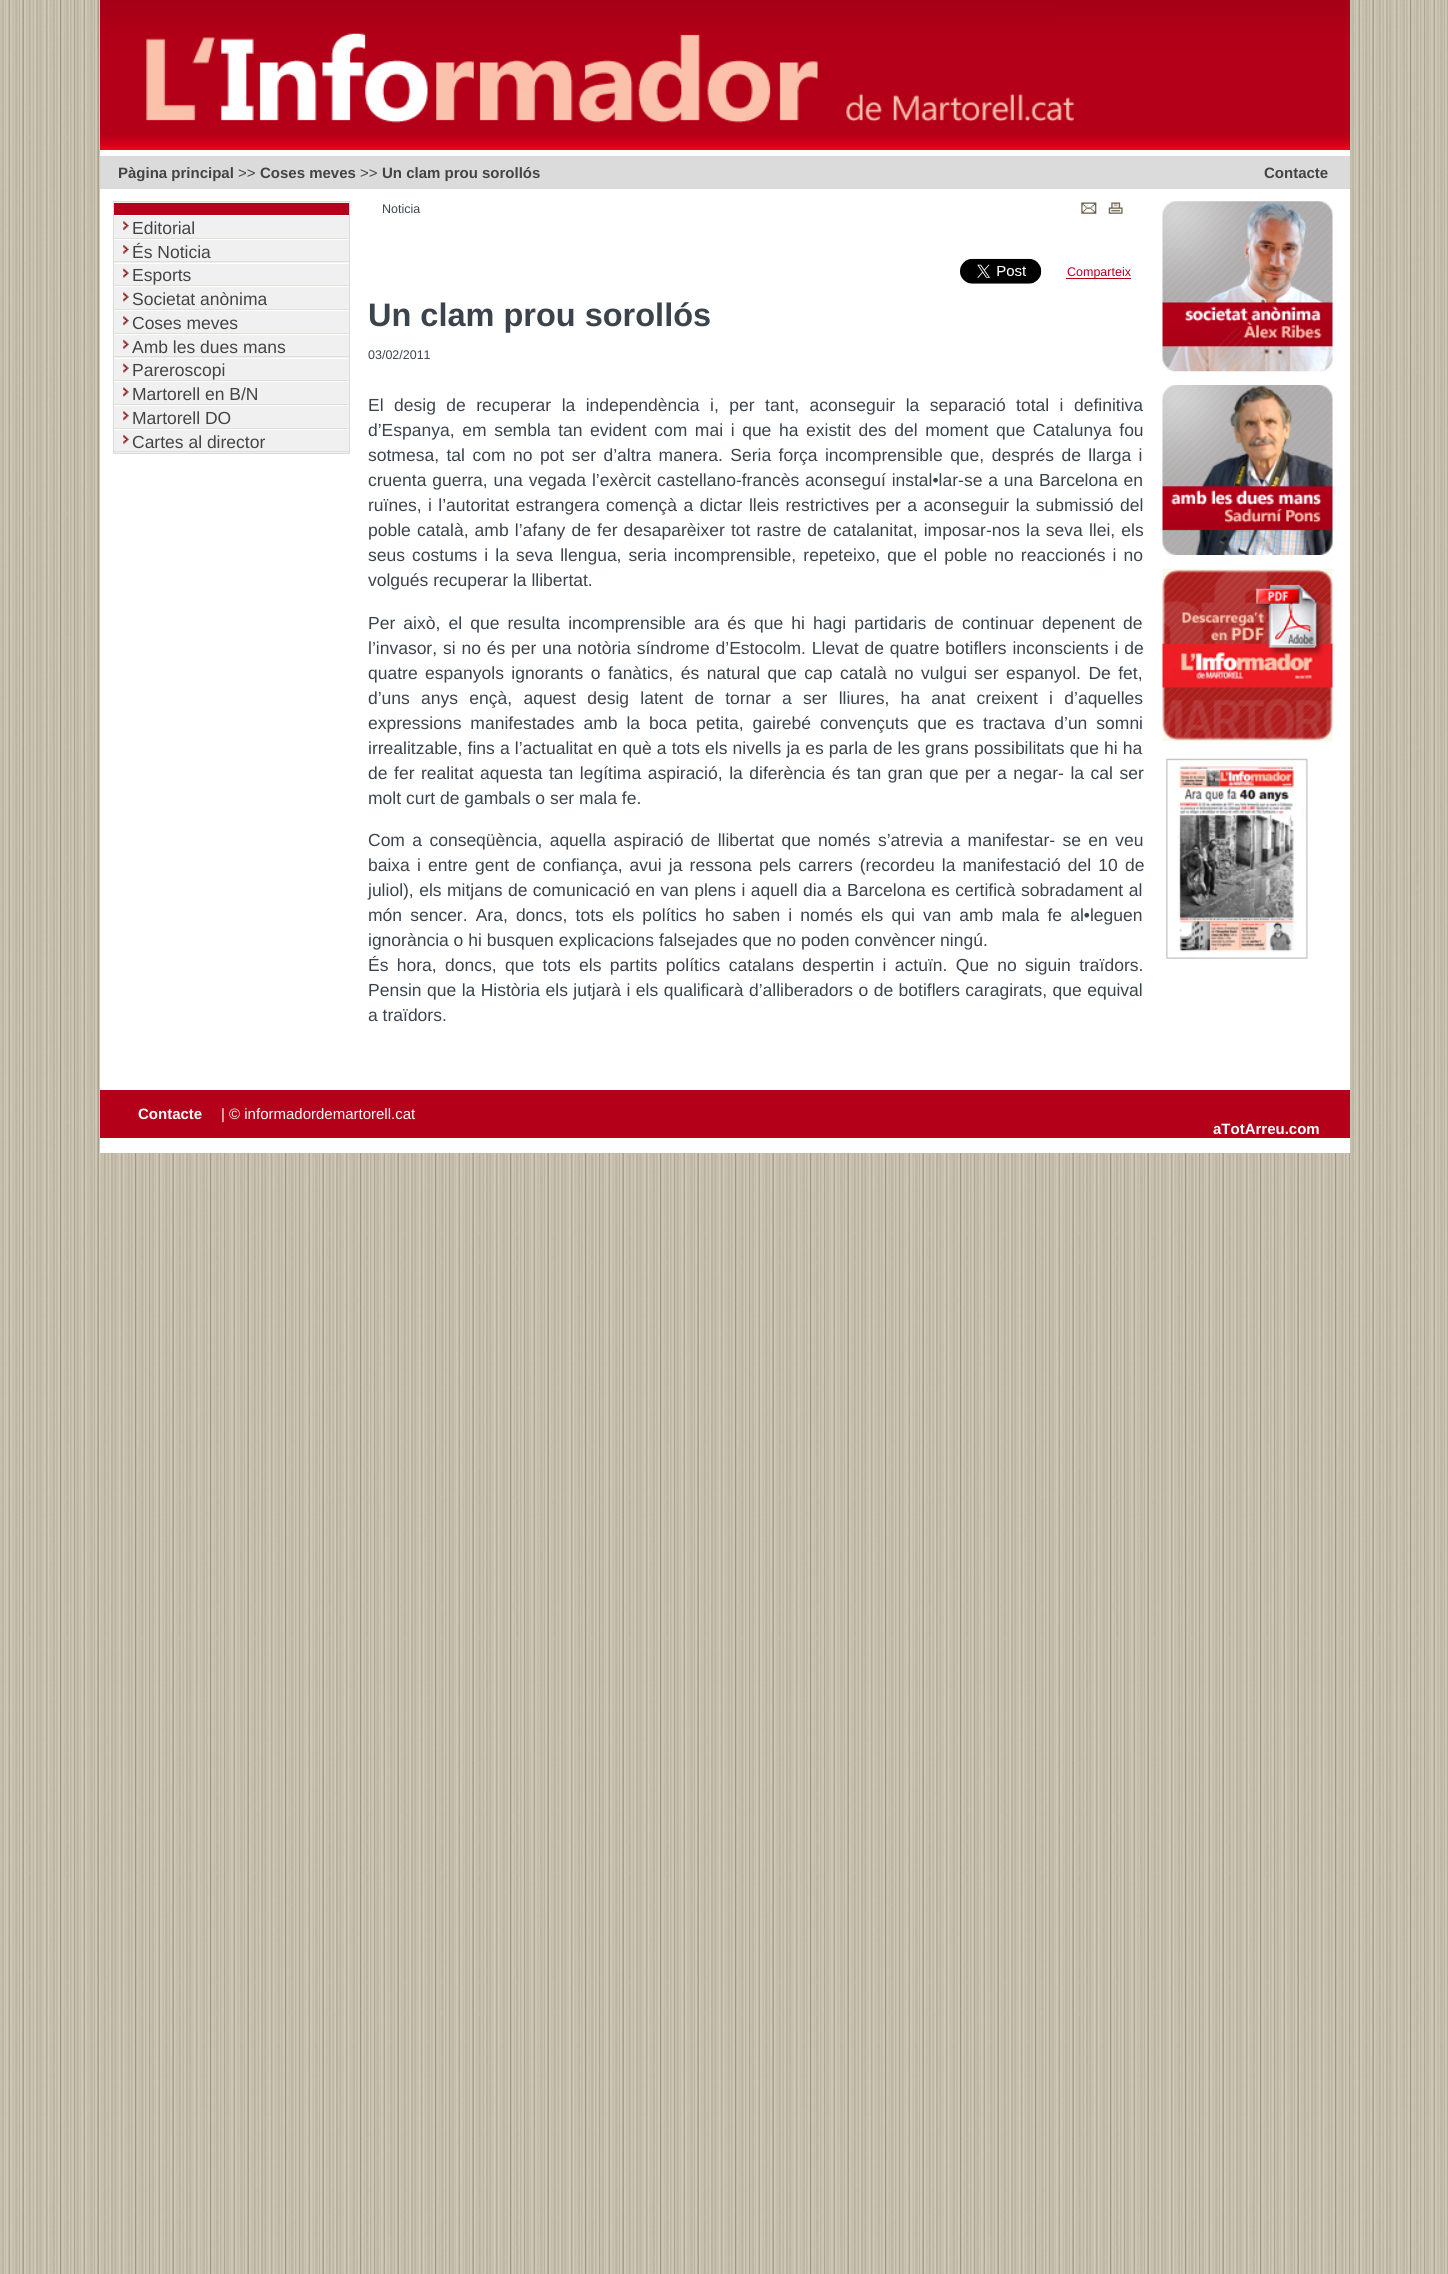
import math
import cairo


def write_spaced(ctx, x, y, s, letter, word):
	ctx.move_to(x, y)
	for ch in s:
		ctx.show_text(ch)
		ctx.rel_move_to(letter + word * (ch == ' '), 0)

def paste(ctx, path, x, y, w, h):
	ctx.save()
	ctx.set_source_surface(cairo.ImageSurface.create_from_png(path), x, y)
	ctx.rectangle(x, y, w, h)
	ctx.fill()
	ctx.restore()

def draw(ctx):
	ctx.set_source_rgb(1, 1, 1)
	ctx.paint()
	paste(ctx, 'media/1.png', 0, 0, 1448, 2274)
	ctx.set_source_rgb(1, 1, 1)
	ctx.rectangle(100, 150, 1250, 1003)
	ctx.fill()
	paste(ctx, 'media/2.png', 100, 0, 1250, 150)
	ctx.set_source_rgb(0.859, 0.859, 0.859)
	ctx.rectangle(100, 156, 1250, 33)
	ctx.fill()
	ctx.select_font_face('Liberation Sans', cairo.FONT_SLANT_NORMAL, cairo.FONT_WEIGHT_BOLD)
	ctx.set_font_size(15)
	ctx.set_source_rgb(0.267, 0.267, 0.267)
	ctx.move_to(118, 178)
	ctx.show_text('Pàgina principal')
	ctx.select_font_face('Liberation Sans')
	ctx.move_to(238, 178)
	ctx.show_text('>>')
	ctx.select_font_face('Liberation Sans', cairo.FONT_SLANT_NORMAL, cairo.FONT_WEIGHT_BOLD)
	ctx.move_to(260, 178)
	ctx.show_text('Coses meves')
	ctx.select_font_face('Liberation Sans')
	ctx.move_to(360, 178)
	ctx.show_text('>>')
	ctx.select_font_face('Liberation Sans', cairo.FONT_SLANT_NORMAL, cairo.FONT_WEIGHT_BOLD)
	ctx.move_to(382, 178)
	ctx.show_text('Un clam prou sorollós')
	ctx.move_to(1264, 178)
	ctx.show_text('Contacte')
	ctx.set_source_rgb(0.941, 0.941, 0.941)
	ctx.rectangle(113.5, 201.5, 236, 252)
	ctx.fill_preserve()
	ctx.set_source_rgb(0.859, 0.859, 0.859)
	ctx.set_line_width(1)
	ctx.stroke()
	ctx.set_source_rgb(0.706, 0, 0.098)
	ctx.rectangle(114, 203, 235, 12)
	ctx.fill()
	paste(ctx, 'media/3.png', 123, 221, 6, 10)
	ctx.set_source_rgb(1, 1, 1)
	ctx.rectangle(114, 215, 235, 1)
	ctx.fill()
	ctx.set_source_rgb(0.882, 0.871, 0.847)
	ctx.rectangle(114, 238, 235, 1)
	ctx.fill()
	ctx.select_font_face('Liberation Sans')
	ctx.set_font_size(17.5)
	ctx.set_source_rgb(0.267, 0.267, 0.267)
	ctx.move_to(132, 234)
	ctx.show_text('Editorial')
	paste(ctx, 'media/4.png', 123, 244, 6, 10)
	ctx.set_source_rgb(1, 1, 1)
	ctx.rectangle(114, 239, 235, 1)
	ctx.fill()
	ctx.set_source_rgb(0.882, 0.871, 0.847)
	ctx.rectangle(114, 261, 235, 1)
	ctx.fill()
	ctx.set_source_rgb(0.267, 0.267, 0.267)
	ctx.move_to(132, 258)
	ctx.show_text('És Noticia')
	paste(ctx, 'media/5.png', 123, 268, 6, 10)
	ctx.set_source_rgb(1, 1, 1)
	ctx.rectangle(114, 263, 235, 1)
	ctx.fill()
	ctx.set_source_rgb(0.882, 0.871, 0.847)
	ctx.rectangle(114, 285, 235, 1)
	ctx.fill()
	ctx.set_source_rgb(0.267, 0.267, 0.267)
	ctx.move_to(132, 281)
	ctx.show_text('Esports')
	paste(ctx, 'media/6.png', 123, 292, 6, 10)
	ctx.set_source_rgb(1, 1, 1)
	ctx.rectangle(114, 286, 235, 1)
	ctx.fill()
	ctx.set_source_rgb(0.882, 0.871, 0.847)
	ctx.rectangle(114, 309, 235, 1)
	ctx.fill()
	ctx.set_source_rgb(0.267, 0.267, 0.267)
	ctx.move_to(132, 305)
	ctx.show_text('Societat anònima')
	paste(ctx, 'media/3.png', 123, 316, 6, 10)
	ctx.set_source_rgb(1, 1, 1)
	ctx.rectangle(114, 310, 235, 1)
	ctx.fill()
	ctx.set_source_rgb(0.882, 0.871, 0.847)
	ctx.rectangle(114, 333, 235, 1)
	ctx.fill()
	ctx.set_source_rgb(0.267, 0.267, 0.267)
	ctx.move_to(132, 329)
	ctx.show_text('Coses meves')
	paste(ctx, 'media/4.png', 123, 339, 6, 10)
	ctx.set_source_rgb(1, 1, 1)
	ctx.rectangle(114, 334, 235, 1)
	ctx.fill()
	ctx.set_source_rgb(0.882, 0.871, 0.847)
	ctx.rectangle(114, 356, 235, 1)
	ctx.fill()
	ctx.set_source_rgb(0.267, 0.267, 0.267)
	ctx.move_to(132, 353)
	ctx.show_text('Amb les dues mans')
	paste(ctx, 'media/5.png', 123, 363, 6, 10)
	ctx.set_source_rgb(1, 1, 1)
	ctx.rectangle(114, 358, 235, 1)
	ctx.fill()
	ctx.set_source_rgb(0.882, 0.871, 0.847)
	ctx.rectangle(114, 380, 235, 1)
	ctx.fill()
	ctx.set_source_rgb(0.267, 0.267, 0.267)
	ctx.move_to(132, 376)
	ctx.show_text('Pareroscopi')
	paste(ctx, 'media/7.png', 123, 387, 6, 10)
	ctx.set_source_rgb(1, 1, 1)
	ctx.rectangle(114, 381, 235, 1)
	ctx.fill()
	ctx.set_source_rgb(0.882, 0.871, 0.847)
	ctx.rectangle(114, 404, 235, 1)
	ctx.fill()
	ctx.set_source_rgb(0.267, 0.267, 0.267)
	ctx.move_to(132, 400)
	ctx.show_text('Martorell en B/N')
	paste(ctx, 'media/3.png', 123, 411, 6, 10)
	ctx.set_source_rgb(1, 1, 1)
	ctx.rectangle(114, 405, 235, 1)
	ctx.fill()
	ctx.set_source_rgb(0.882, 0.871, 0.847)
	ctx.rectangle(114, 428, 235, 1)
	ctx.fill()
	ctx.set_source_rgb(0.267, 0.267, 0.267)
	ctx.move_to(132, 424)
	ctx.show_text('Martorell DO')
	paste(ctx, 'media/4.png', 123, 434, 6, 10)
	ctx.set_source_rgb(1, 1, 1)
	ctx.rectangle(114, 429, 235, 1)
	ctx.fill()
	ctx.set_source_rgb(0.882, 0.871, 0.847)
	ctx.rectangle(114, 451, 235, 1)
	ctx.fill()
	ctx.set_source_rgb(0.267, 0.267, 0.267)
	ctx.move_to(132, 448)
	ctx.show_text('Cartes al director')
	ctx.set_font_size(12.5)
	ctx.set_source_rgb(0.231, 0.263, 0.298)
	ctx.move_to(382, 213)
	ctx.show_text('Noticia')
	paste(ctx, 'media/8.png', 1081, 202, 16, 12)
	paste(ctx, 'media/9.png', 1108, 202, 15, 12)
	paste(ctx, 'media/10.png', 960, 258, 82, 26)
	ctx.set_source_rgb(0.706, 0, 0.098)
	ctx.rectangle(1066, 278, 65, 1)
	ctx.fill()
	ctx.move_to(1067, 276)
	ctx.show_text('Comparteix')
	ctx.select_font_face('Liberation Sans', cairo.FONT_SLANT_NORMAL, cairo.FONT_WEIGHT_BOLD)
	ctx.set_font_size(32.5)
	ctx.set_source_rgb(0.231, 0.263, 0.298)
	ctx.move_to(368, 326)
	ctx.show_text('Un clam prou sorollós')
	ctx.select_font_face('Liberation Sans')
	ctx.set_font_size(12.5)
	ctx.move_to(368, 359)
	ctx.show_text('03/02/2011')
	ctx.set_font_size(17.5)
	write_spaced(ctx, 368, 411, 'El desig de recuperar la independència i, per tant, aconseguir la separació total i definitiva', 0, 5.6)
	write_spaced(ctx, 368, 436, 'd’Espanya, em sembla tan evident com mai i que ha existit des del moment que Catalunya fou', 0, 2.75)
	write_spaced(ctx, 368, 461, 'sotmesa, tal com no pot ser d’altra manera. Seria força incomprensible que, després de llarga i', 0, 2.6)
	write_spaced(ctx, 368, 486, 'cruenta guerra, una vegada l’exèrcit castellano-francès aconseguí instal•lar-se a una Barcelona en', 0, 1)
	write_spaced(ctx, 368, 511, 'ruïnes, i l’autoritat estrangera començà a dictar lleis restrictives per a aconseguir la submissió del', 0, 1.6)
	write_spaced(ctx, 368, 536, 'poble català, amb l’afany de fer desaparèixer tot rastre de catalanitat, imposar-nos la seva llei, els', 0, 1.25)
	write_spaced(ctx, 368, 561, 'seus costums i la seva llengua, seria incomprensible, repeteixo, que el poble no reaccionés i no', 0, 2.25)
	ctx.move_to(368, 586)
	ctx.show_text('volgués recuperar la llibertat.')
	write_spaced(ctx, 368, 629, 'Per això, el que resulta incomprensible ara és que hi hagi partidaris de continuar depenent de', 0, 3.25)
	write_spaced(ctx, 368, 654, 'l’invasor, si no és per una notòria síndrome d’Estocolm. Llevat de quatre botiflers inconscients i de', 0, 1)
	write_spaced(ctx, 368, 679, 'quatre espanyols ignorants o fanàtics, és natural que cap català no vulgui ser espanyol. De fet,', 0, 2.6)
	write_spaced(ctx, 368, 704, 'd’uns anys ençà, aquest desig latent de tornar a ser lliures, ha anat creixent i d’aquelles', 0, 6.4)
	write_spaced(ctx, 368, 729, 'expressions manifestades amb la boca petita, gairebé convençuts que es tractava d’un somni', 0, 4.1)
	write_spaced(ctx, 368, 754, 'irrealitzable, fins a l’actualitat en què a tots els nivells ja es parla de les grans possibilitats que hi ha', 0, 0.3)
	write_spaced(ctx, 368, 779, 'de fer realitat aquesta tan legítima aspiració, la diferència és tan gran que per a negar- la cal ser', 0, 1.7)
	ctx.move_to(368, 804)
	ctx.show_text('molt curt de gambals o ser mala fe.')
	write_spaced(ctx, 368, 846, 'Com a conseqüència, aquella aspiració de llibertat que només s’atrevia a manifestar- se en veu', 0, 2.5)
	write_spaced(ctx, 368, 871, 'baixa i entre gent de confiança, avui ja ressona pels carrers (recordeu la manifestació del 10 de', 0, 2.25)
	write_spaced(ctx, 368, 896, 'juliol), els mitjans de comunicació en van plens i aquell dia a Barcelona es certificà sobradament al', 0, 0.6)
	write_spaced(ctx, 368, 921, 'món sencer. Ara, doncs, tots els polítics ho saben i només els qui van amb mala fe al•leguen', 0, 3.25)
	ctx.move_to(368, 946)
	ctx.show_text('ignorància o hi busquen explicacions falsejades que no poden convèncer ningú.')
	write_spaced(ctx, 368, 971, 'És hora, doncs, que tots els partits polítics catalans despertin i actuïn. Que no siguin traïdors.', 0, 3.5)
	write_spaced(ctx, 368, 996, 'Pensin que la Història els jutjarà i els qualificarà d’alliberadors o de botiflers caragirats, que equival', 0, 0.6)
	ctx.move_to(368, 1021)
	ctx.show_text('a traïdors.')
	paste(ctx, 'media/11.png', 1162, 201, 171, 171)
	paste(ctx, 'media/12.png', 1162, 385, 171, 170)
	paste(ctx, 'media/13.png', 1162, 568, 171, 174)
	paste(ctx, 'media/14.png', 1166, 758, 142, 201)
	ctx.set_source_rgb(0.706, 0, 0.098)
	ctx.rectangle(100, 1090, 1250, 48)
	ctx.fill()
	ctx.select_font_face('Liberation Sans', cairo.FONT_SLANT_NORMAL, cairo.FONT_WEIGHT_BOLD)
	ctx.set_font_size(15)
	ctx.set_source_rgb(1, 1, 1)
	ctx.move_to(138, 1119)
	ctx.show_text('Contacte')
	ctx.select_font_face('Liberation Sans')
	ctx.move_to(221, 1119)
	ctx.show_text('| © informadordemartorell.cat')
	ctx.select_font_face('Liberation Sans', cairo.FONT_SLANT_NORMAL, cairo.FONT_WEIGHT_BOLD)
	ctx.move_to(1213, 1134)
	ctx.show_text('aTotArreu.com')


surface = cairo.ImageSurface(cairo.FORMAT_RGB24, 1448, 2274)
ctx = cairo.Context(surface)
options = cairo.FontOptions()
options.set_hint_metrics(cairo.HINT_METRICS_OFF)
options.set_hint_style(cairo.HINT_STYLE_NONE)
ctx.set_font_options(options)
ctx.set_miter_limit(4)
draw(ctx)
surface.write_to_png('image.png')
